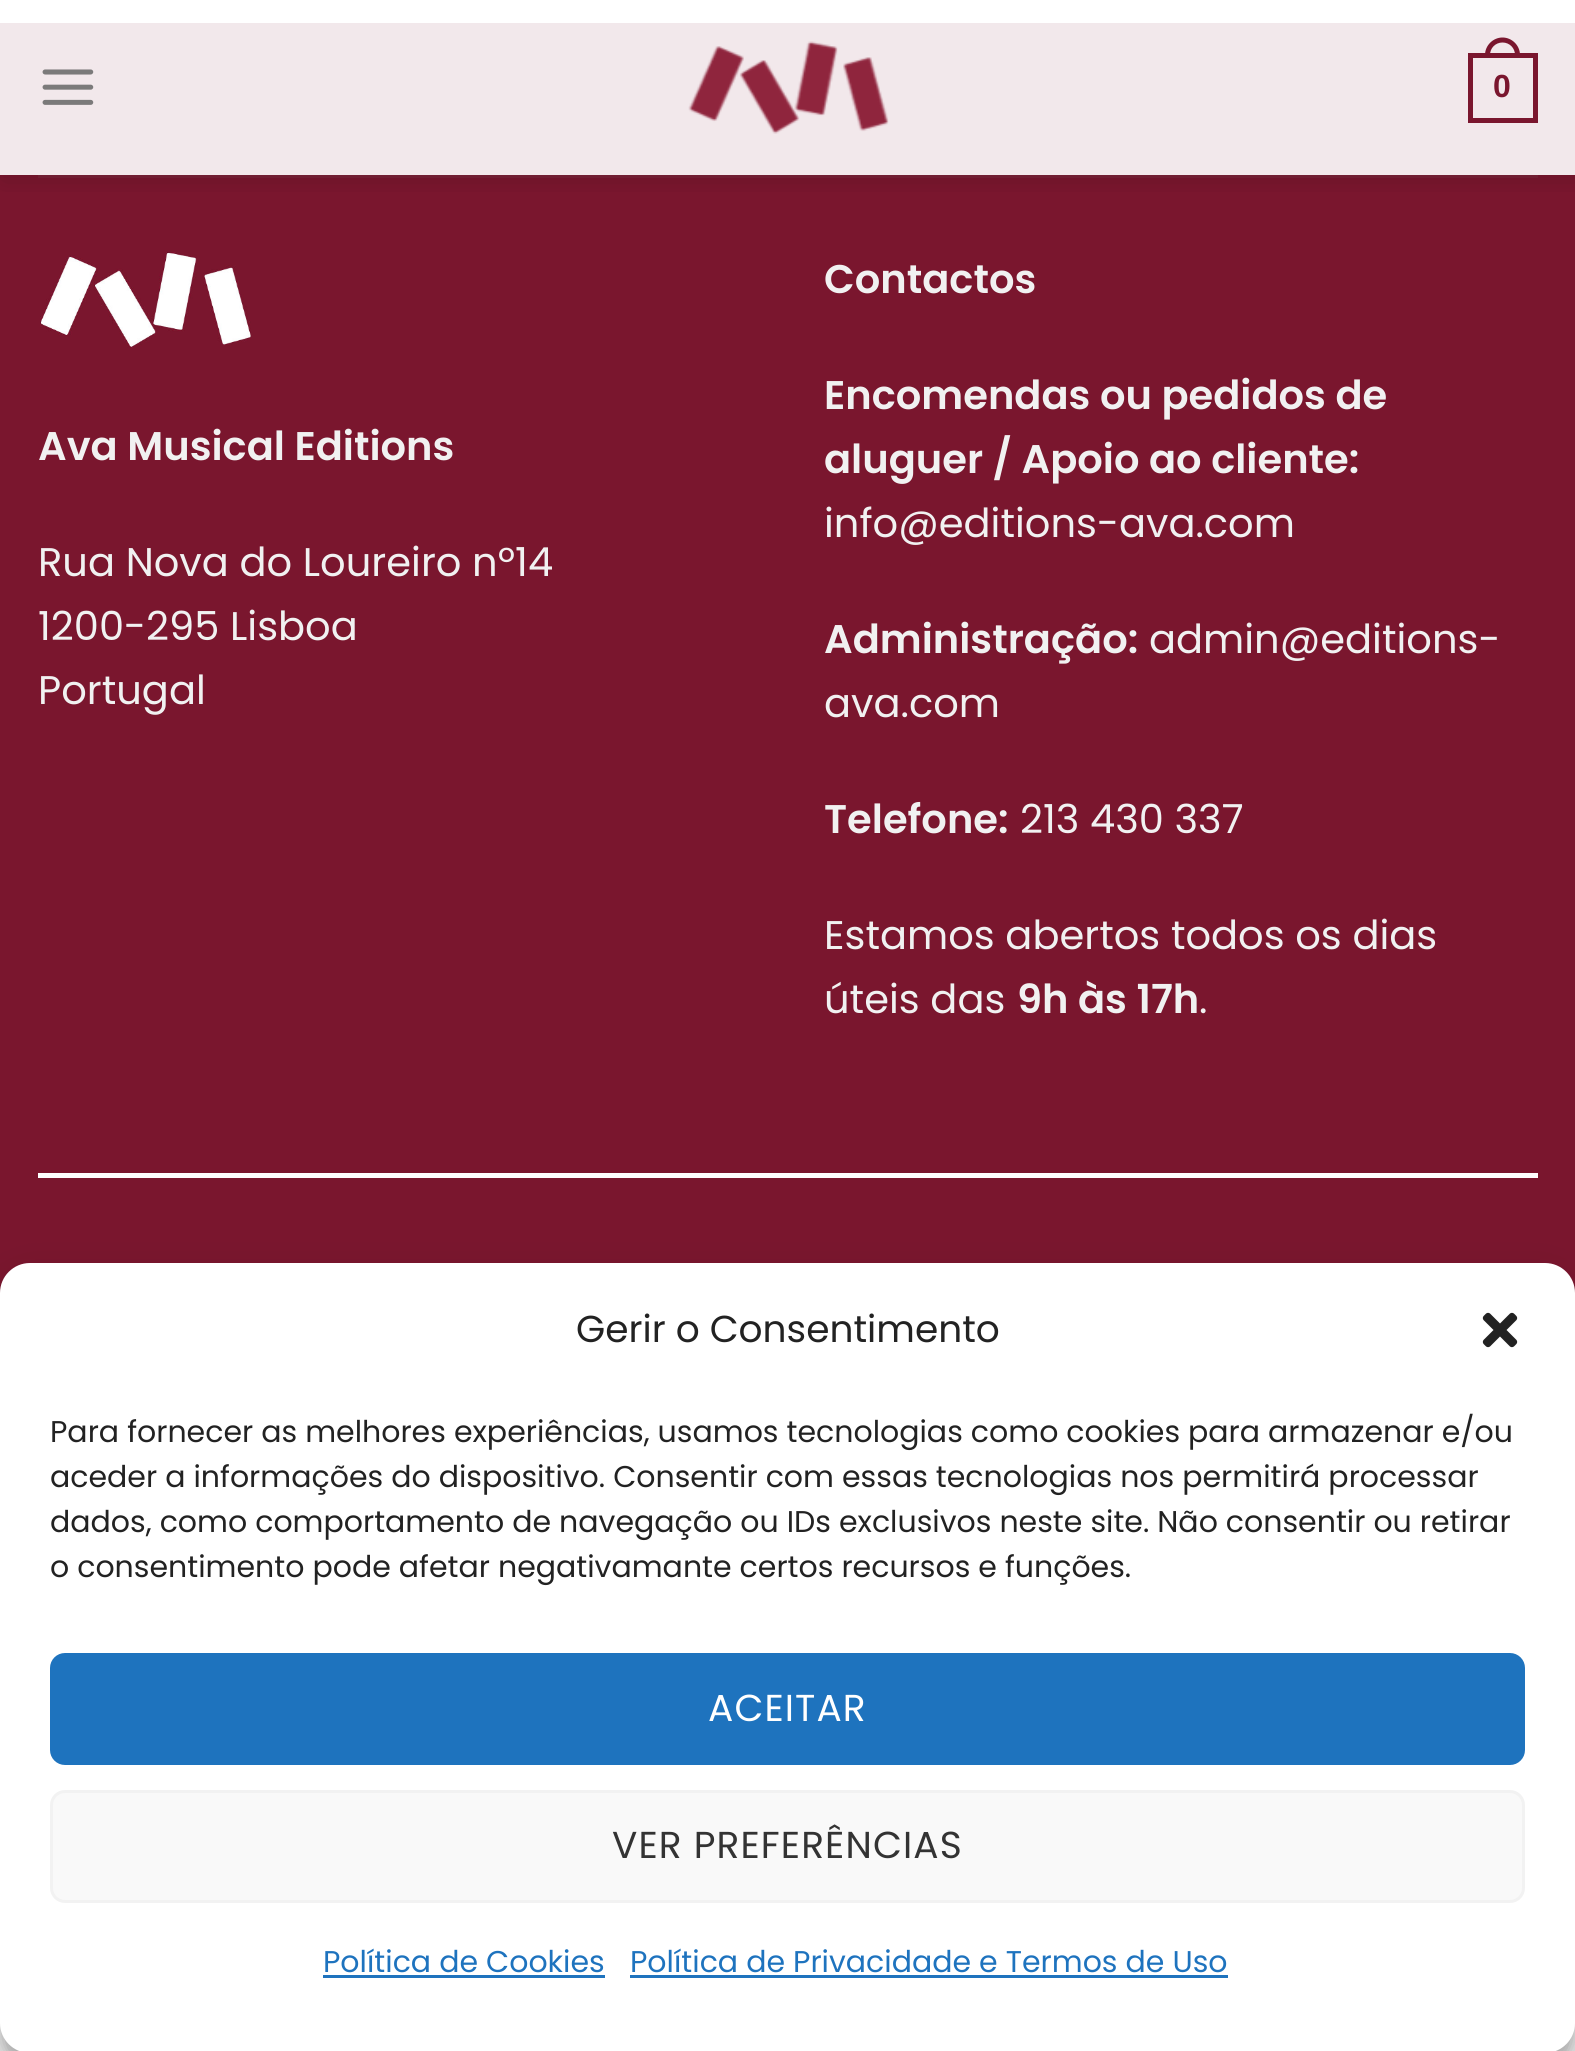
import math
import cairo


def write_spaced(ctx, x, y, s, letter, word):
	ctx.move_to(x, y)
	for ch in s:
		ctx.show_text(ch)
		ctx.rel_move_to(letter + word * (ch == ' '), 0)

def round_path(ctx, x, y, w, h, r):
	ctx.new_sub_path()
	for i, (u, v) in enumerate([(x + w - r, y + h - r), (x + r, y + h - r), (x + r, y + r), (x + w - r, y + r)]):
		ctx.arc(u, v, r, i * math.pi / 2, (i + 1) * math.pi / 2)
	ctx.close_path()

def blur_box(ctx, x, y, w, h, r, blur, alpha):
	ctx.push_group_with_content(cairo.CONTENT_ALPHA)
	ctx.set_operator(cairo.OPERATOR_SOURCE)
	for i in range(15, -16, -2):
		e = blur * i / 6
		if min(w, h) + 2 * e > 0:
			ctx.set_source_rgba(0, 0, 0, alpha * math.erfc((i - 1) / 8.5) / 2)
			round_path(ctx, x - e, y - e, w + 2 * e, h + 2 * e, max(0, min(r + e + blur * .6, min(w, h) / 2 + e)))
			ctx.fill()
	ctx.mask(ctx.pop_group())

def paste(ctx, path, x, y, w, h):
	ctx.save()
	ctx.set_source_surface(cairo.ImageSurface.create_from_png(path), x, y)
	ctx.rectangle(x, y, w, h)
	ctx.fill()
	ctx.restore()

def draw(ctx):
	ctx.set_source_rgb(1, 1, 1)
	ctx.paint()
	ctx.set_source_rgb(0.478, 0.086, 0.18)
	ctx.rectangle(0, 175, 1575, 1118)
	ctx.fill()
	ctx.set_source_rgb(0.949, 0.91, 0.918)
	ctx.rectangle(0, 23, 1575, 152)
	ctx.fill()
	ctx.save()
	ctx.rectangle(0, 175, 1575, 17)
	ctx.clip()
	ctx.set_source_rgb(0, 0, 0)
	blur_box(ctx, 3, 3, 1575, 175, 0, 12.5, 0.15)
	ctx.restore()
	paste(ctx, 'media/1.png', 42, 69, 52, 36)
	paste(ctx, 'media/2.png', 688, 41, 201, 93)
	ctx.rectangle(1470.5, 55.5, 65, 65)
	ctx.set_source_rgb(0.478, 0.086, 0.18)
	ctx.set_line_width(5)
	ctx.stroke()
	ctx.set_fill_rule(cairo.FILL_RULE_EVEN_ODD)
	ctx.new_path()
	ctx.move_to(1502.5, 37.5)
	ctx.curve_to(1512, 37.5, 1520, 45.5, 1520, 55)
	ctx.line_to(1520, 57.5)
	ctx.line_to(1485, 57.5)
	ctx.line_to(1485, 55)
	ctx.curve_to(1485, 45.5, 1493, 37.5, 1502.5, 37.5)
	ctx.close_path()
	ctx.move_to(1502.5, 42.5)
	ctx.curve_to(1509.5, 42.5, 1515, 48, 1515, 55)
	ctx.line_to(1515, 57.5)
	ctx.line_to(1490, 57.5)
	ctx.line_to(1490, 55)
	ctx.curve_to(1490, 48, 1495.5, 42.5, 1502.5, 42.5)
	ctx.close_path()
	ctx.fill()
	ctx.select_font_face('Liberation Sans', cairo.FONT_SLANT_NORMAL, cairo.FONT_WEIGHT_BOLD)
	ctx.set_font_size(32)
	ctx.move_to(1493, 97)
	ctx.show_text('0')
	ctx.set_source_rgb(0.443, 0.118, 0.196)
	ctx.rectangle(38, 175, 1500, 3)
	ctx.fill()
	paste(ctx, 'media/3.png', 40, 252, 211, 96)
	ctx.select_font_face('Poppins SemiBold')
	ctx.set_font_size(40)
	ctx.set_source_rgb(0.945, 0.945, 0.945)
	ctx.move_to(38, 460)
	ctx.show_text('Ava Musical Editions')
	ctx.select_font_face('Poppins')
	for x, y, s in [
		(38, 576, 'Rua Nova do Loureiro nº14'),
		(38, 640, '1200-295 Lisboa'),
		(38, 704, 'Portugal'),
	]:
		ctx.move_to(x, y)
		ctx.show_text(s)
	ctx.select_font_face('Poppins SemiBold')
	for x, y, s in [
		(824, 293, 'Contactos'),
		(824, 409, 'Encomendas ou pedidos de'),
		(824, 473, 'aluguer / Apoio ao cliente:'),
	]:
		ctx.move_to(x, y)
		ctx.show_text(s)
	ctx.select_font_face('Poppins')
	ctx.move_to(824, 537)
	ctx.show_text('info@editions-ava.com')
	ctx.select_font_face('Poppins SemiBold')
	ctx.move_to(824, 653)
	ctx.show_text('Administração:')
	ctx.select_font_face('Poppins')
	ctx.move_to(1149, 653)
	ctx.show_text('admin@editions-')
	ctx.move_to(824, 717)
	ctx.show_text('ava.com')
	ctx.select_font_face('Poppins SemiBold')
	ctx.move_to(824, 833)
	ctx.show_text('Telefone:')
	ctx.select_font_face('Poppins')
	for x, y, s in [
		(1020, 833, '213 430 337'),
		(824, 949, 'Estamos abertos todos os dias'),
		(824, 1013, 'úteis das'),
	]:
		ctx.move_to(x, y)
		ctx.show_text(s)
	ctx.select_font_face('Poppins SemiBold')
	ctx.move_to(1017, 1013)
	ctx.show_text('9h às 17h')
	ctx.select_font_face('Poppins')
	ctx.move_to(1199, 1013)
	ctx.show_text('.')
	ctx.set_source_rgb(1, 1, 1)
	ctx.rectangle(38, 1173, 1500, 5)
	ctx.fill()
	ctx.set_source_rgb(0, 0, 0)
	blur_box(ctx, 0, 1278, 1575, 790, 30, 7.5, 0.23)
	blur_box(ctx, 0, 1288, 1575, 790, 30, 25, 0.19)
	ctx.set_source_rgb(1, 1, 1)
	round_path(ctx, 0, 1263, 1575, 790, 30)
	ctx.fill()
	ctx.set_font_size(37.5)
	ctx.set_source_rgb(0.133, 0.133, 0.133)
	ctx.move_to(576, 1342)
	ctx.show_text('Gerir o Consentimento')
	paste(ctx, 'media/4.png', 1482, 1312, 36, 36)
	ctx.set_font_size(30)
	for x, y, s in [
		(50, 1442, 'Para fornecer as melhores experiências, usamos tecnologias como cookies para armazenar e/ou'),
		(50, 1487, 'aceder a informações do dispositivo. Consentir com essas tecnologias nos permitirá processar'),
		(50, 1532, 'dados, como comportamento de navegação ou IDs exclusivos neste site. Não consentir ou retirar'),
		(50, 1577, 'o consentimento pode afetar negativamante certos recursos e funções.'),
	]:
		ctx.move_to(x, y)
		ctx.show_text(s)
	ctx.set_source_rgb(0.118, 0.451, 0.745)
	round_path(ctx, 51.5, 1654.5, 1472, 109, 13.5)
	ctx.fill_preserve()
	ctx.set_line_width(3)
	ctx.stroke()
	ctx.set_font_size(37.5)
	ctx.set_source_rgb(1, 1, 1)
	write_spaced(ctx, 708, 1721, 'ACEITAR', 1.1, 0)
	ctx.set_source_rgb(0.976, 0.976, 0.976)
	round_path(ctx, 51.5, 1791.5, 1472, 110, 13.5)
	ctx.fill_preserve()
	ctx.set_source_rgb(0.949, 0.949, 0.949)
	ctx.stroke()
	ctx.set_source_rgb(0.2, 0.2, 0.2)
	write_spaced(ctx, 612, 1858, 'VER PREFERÊNCIAS', 1.1, 0)
	ctx.set_font_size(30)
	ctx.set_source_rgb(0.118, 0.451, 0.745)
	ctx.move_to(323, 1972)
	ctx.show_text('Política de Cookies')
	ctx.rectangle(323, 1975, 282, 3)
	ctx.fill()
	ctx.move_to(630, 1972)
	ctx.show_text('Política de Privacidade e Termos de Uso')
	ctx.rectangle(630, 1975, 598, 3)
	ctx.fill()


surface = cairo.ImageSurface(cairo.FORMAT_RGB24, 1575, 2051)
ctx = cairo.Context(surface)
options = cairo.FontOptions()
options.set_hint_metrics(cairo.HINT_METRICS_OFF)
options.set_hint_style(cairo.HINT_STYLE_NONE)
ctx.set_font_options(options)
ctx.set_miter_limit(4)
draw(ctx)
surface.write_to_png('image.png')
